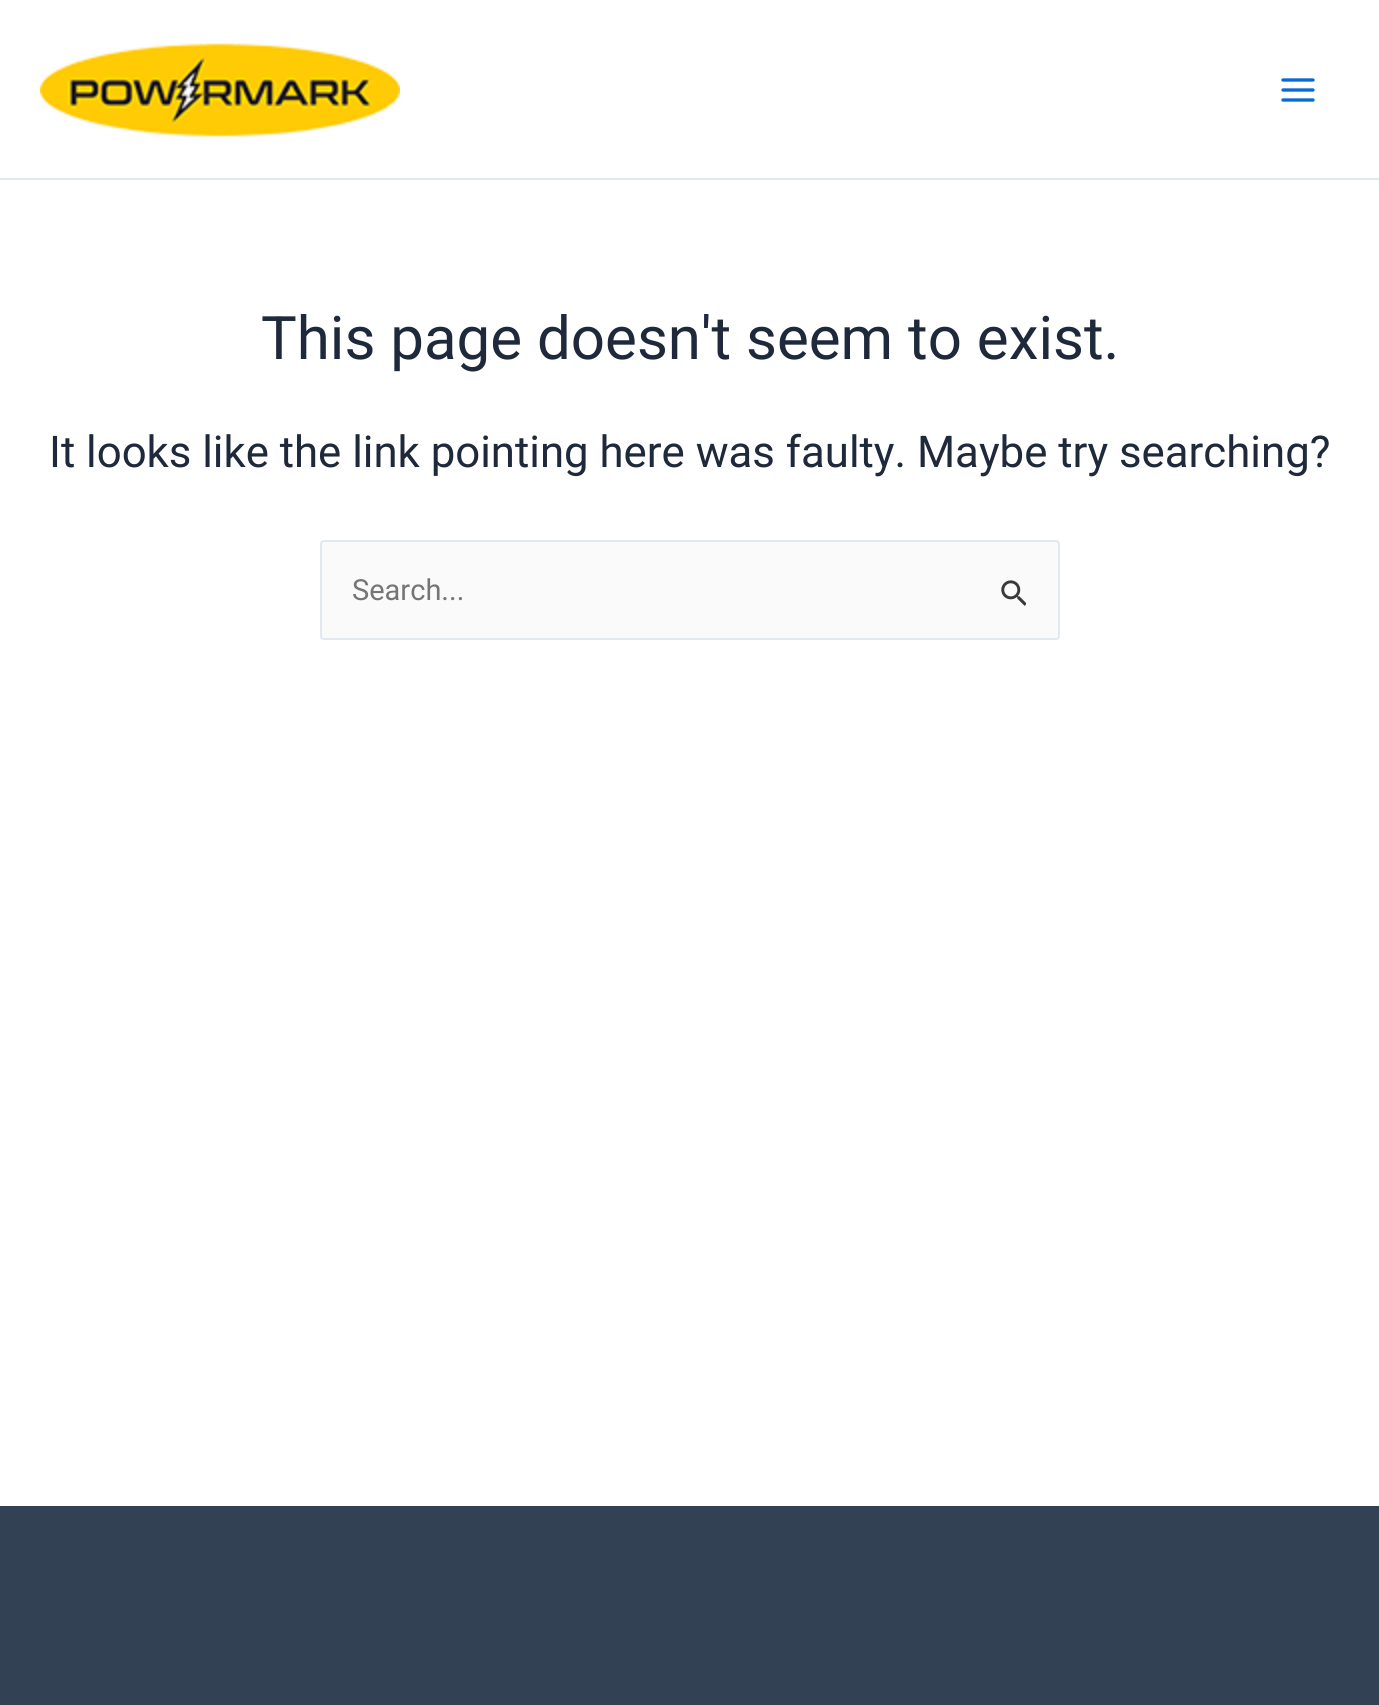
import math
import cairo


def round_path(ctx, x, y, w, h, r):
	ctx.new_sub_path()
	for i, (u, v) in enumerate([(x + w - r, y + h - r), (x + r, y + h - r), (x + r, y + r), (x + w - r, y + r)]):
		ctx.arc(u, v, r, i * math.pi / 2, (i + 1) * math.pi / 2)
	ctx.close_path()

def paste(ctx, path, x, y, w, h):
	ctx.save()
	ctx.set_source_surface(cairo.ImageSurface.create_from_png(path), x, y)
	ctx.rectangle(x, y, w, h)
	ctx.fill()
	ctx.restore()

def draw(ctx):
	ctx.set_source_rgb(1, 1, 1)
	ctx.paint()
	ctx.set_source_rgb(0.886, 0.91, 0.941)
	ctx.rectangle(0, 178, 1379, 2)
	ctx.fill()
	paste(ctx, 'media/1.png', 40, 43, 360, 94)
	paste(ctx, 'media/2.png', 1281, 78, 34, 24)
	ctx.select_font_face('Roboto')
	ctx.set_font_size(60)
	ctx.set_source_rgb(0.118, 0.161, 0.231)
	ctx.move_to(261, 359)
	ctx.show_text('This page doesn\'t seem to exist.')
	ctx.set_font_size(43.75)
	ctx.move_to(49, 467)
	ctx.show_text('It looks like the link pointing here was faulty. Maybe try searching?')
	ctx.set_source_rgb(0.98, 0.98, 0.98)
	round_path(ctx, 321, 541, 738, 98, 3)
	ctx.fill_preserve()
	ctx.set_source_rgb(0.886, 0.91, 0.941)
	ctx.stroke()
	ctx.set_font_size(29)
	ctx.set_source_rgb(0.459, 0.459, 0.459)
	ctx.move_to(352, 600)
	ctx.show_text('Search...')
	paste(ctx, 'media/3.png', 1001, 580, 25, 26)
	ctx.set_source_rgb(0.2, 0.255, 0.333)
	ctx.rectangle(0, 1506, 1379, 199)
	ctx.fill()


surface = cairo.ImageSurface(cairo.FORMAT_RGB24, 1379, 1705)
ctx = cairo.Context(surface)
options = cairo.FontOptions()
options.set_hint_metrics(cairo.HINT_METRICS_OFF)
options.set_hint_style(cairo.HINT_STYLE_NONE)
ctx.set_font_options(options)
ctx.set_miter_limit(4)
draw(ctx)
surface.write_to_png('image.png')
